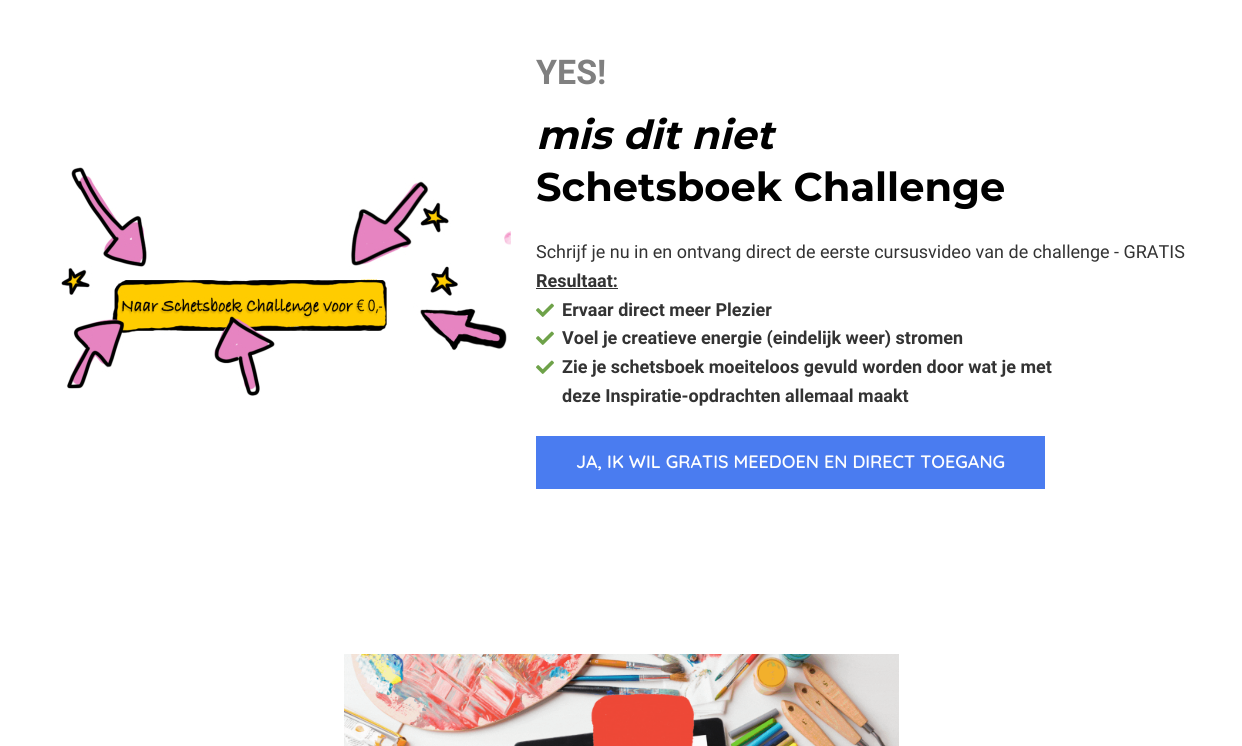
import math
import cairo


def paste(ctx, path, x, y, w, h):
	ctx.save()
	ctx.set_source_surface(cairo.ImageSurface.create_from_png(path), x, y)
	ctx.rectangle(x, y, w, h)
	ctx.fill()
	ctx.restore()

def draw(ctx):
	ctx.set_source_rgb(1, 1, 1)
	ctx.paint()
	paste(ctx, 'media/1.png', 61, 167, 450, 229)
	ctx.select_font_face('Roboto', cairo.FONT_SLANT_NORMAL, cairo.FONT_WEIGHT_BOLD)
	ctx.set_font_size(34)
	ctx.set_source_rgb(0.502, 0.502, 0.502)
	ctx.move_to(536, 84)
	ctx.show_text('YES!')
	ctx.select_font_face('Montserrat Thin', cairo.FONT_SLANT_ITALIC)
	ctx.set_font_size(40)
	ctx.set_source_rgb(0, 0, 0)
	ctx.move_to(536, 149)
	ctx.show_text('mis dit niet')
	ctx.select_font_face('Montserrat Thin')
	ctx.move_to(536, 201)
	ctx.show_text('Schetsboek Challenge')
	ctx.select_font_face('Roboto')
	ctx.set_font_size(18)
	ctx.set_source_rgb(0.2, 0.2, 0.2)
	ctx.move_to(536, 258)
	ctx.show_text('Schrijf je nu in en ontvang direct de eerste cursusvideo van de challenge - GRATIS')
	ctx.select_font_face('Roboto', cairo.FONT_SLANT_NORMAL, cairo.FONT_WEIGHT_BOLD)
	ctx.move_to(536, 287)
	ctx.show_text('Resultaat:')
	ctx.rectangle(536, 288, 82, 1)
	ctx.fill()
	paste(ctx, 'media/2.png', 536, 303, 18, 14)
	ctx.move_to(562, 316)
	ctx.show_text('Ervaar direct meer Plezier')
	paste(ctx, 'media/2.png', 536, 331, 18, 14)
	ctx.move_to(562, 344)
	ctx.show_text('Voel je creatieve energie (eindelijk weer) stromen')
	paste(ctx, 'media/2.png', 536, 360, 18, 14)
	ctx.move_to(562, 373)
	ctx.show_text('Zie je schetsboek moeiteloos gevuld worden door wat je met')
	ctx.move_to(562, 402)
	ctx.show_text('deze Inspiratie-opdrachten allemaal maakt')
	ctx.set_source_rgb(0.29, 0.486, 0.941)
	ctx.rectangle(536, 436, 509, 53)
	ctx.fill()
	ctx.select_font_face('Quicksand SemiBold')
	ctx.set_source_rgb(0.996, 0.996, 0.996)
	ctx.move_to(576, 468)
	ctx.show_text('JA, IK WIL GRATIS MEEDOEN EN DIRECT TOEGANG')
	paste(ctx, 'media/3.png', 344, 654, 555, 92)


surface = cairo.ImageSurface(cairo.FORMAT_RGB24, 1242, 746)
ctx = cairo.Context(surface)
options = cairo.FontOptions()
options.set_hint_metrics(cairo.HINT_METRICS_OFF)
options.set_hint_style(cairo.HINT_STYLE_NONE)
ctx.set_font_options(options)
ctx.set_miter_limit(4)
draw(ctx)
surface.write_to_png('image.png')
